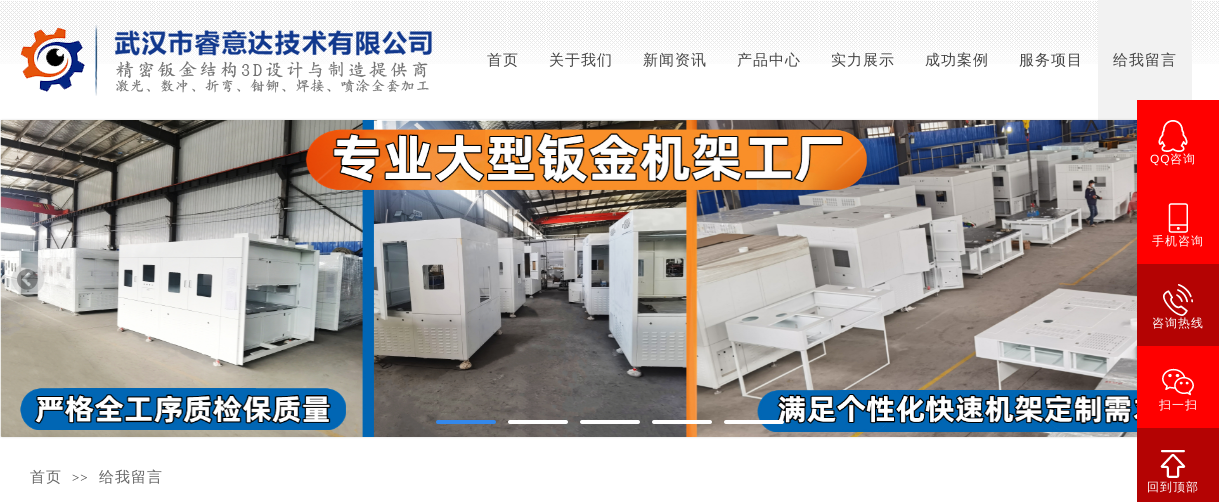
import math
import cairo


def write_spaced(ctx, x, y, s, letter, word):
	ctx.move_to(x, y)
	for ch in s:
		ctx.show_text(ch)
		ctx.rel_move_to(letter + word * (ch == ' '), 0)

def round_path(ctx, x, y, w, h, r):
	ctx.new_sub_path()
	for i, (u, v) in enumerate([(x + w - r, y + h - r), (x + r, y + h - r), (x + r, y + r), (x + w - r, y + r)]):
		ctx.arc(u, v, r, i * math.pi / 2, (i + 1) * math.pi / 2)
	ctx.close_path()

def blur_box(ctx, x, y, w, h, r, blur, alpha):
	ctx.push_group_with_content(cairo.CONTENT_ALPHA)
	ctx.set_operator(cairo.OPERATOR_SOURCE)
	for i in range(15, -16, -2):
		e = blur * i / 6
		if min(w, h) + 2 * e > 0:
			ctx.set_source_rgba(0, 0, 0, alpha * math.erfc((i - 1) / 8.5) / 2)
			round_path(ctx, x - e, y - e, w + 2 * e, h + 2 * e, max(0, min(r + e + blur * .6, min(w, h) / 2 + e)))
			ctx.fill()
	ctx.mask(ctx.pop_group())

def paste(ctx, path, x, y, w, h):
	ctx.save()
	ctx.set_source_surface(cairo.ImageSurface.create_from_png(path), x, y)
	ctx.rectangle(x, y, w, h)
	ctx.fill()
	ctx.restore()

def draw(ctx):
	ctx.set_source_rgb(1, 1, 1)
	ctx.paint()
	paste(ctx, 'media/1.png', 0, 1, 1219, 63)
	paste(ctx, 'media/2.png', 20, 25, 412, 71)
	ctx.select_font_face('WenQuanYi Zen Hei Medium')
	ctx.set_font_size(15)
	ctx.set_source_rgb(0.267, 0.267, 0.267)
	for x, y, s in [
		(487, 65, '首页'),
		(549, 65, '关于我们'),
		(643, 65, '新闻资讯'),
		(737, 65, '产品中心'),
		(831, 65, '实力展示'),
		(925, 65, '成功案例'),
		(1019, 65, '服务项目'),
	]:
		write_spaced(ctx, x, y, s, 1, 0)
	ctx.set_source_rgb(0.949, 0.949, 0.949)
	ctx.rectangle(1098, 0, 94, 120)
	ctx.fill()
	ctx.set_source_rgb(0.267, 0.267, 0.267)
	write_spaced(ctx, 1113, 65, '给我留言', 1, 0)
	ctx.set_source_rgb(0, 0, 0)
	blur_box(ctx, 0, 120, 1219, 317, 2, 1, 0.15)
	paste(ctx, 'media/3.png', 0, 120, 1137, 317)
	paste(ctx, 'media/4.png', 11, 262, 34, 34)
	paste(ctx, 'media/5.png', 17, 269, 21, 21)
	ctx.set_source_rgb(0.204, 0.533, 0.918)
	round_path(ctx, 436, 420, 60, 4, 2)
	ctx.fill()
	ctx.set_source_rgb(1, 1, 1)
	round_path(ctx, 508, 420, 60, 4, 2)
	ctx.fill()
	round_path(ctx, 580, 420, 60, 4, 2)
	ctx.fill()
	round_path(ctx, 652, 420, 60, 4, 2)
	ctx.fill()
	round_path(ctx, 724, 420, 60, 4, 2)
	ctx.fill()
	ctx.set_source_rgb(0.4, 0.4, 0.4)
	write_spaced(ctx, 30, 482, '首页', 1, 0)
	ctx.select_font_face('Liberation Serif')
	ctx.set_font_size(13)
	ctx.set_source_rgb(0.2, 0.2, 0.2)
	write_spaced(ctx, 72, 482, '>>', 1, 0)
	ctx.select_font_face('WenQuanYi Zen Hei Medium')
	ctx.set_font_size(15)
	ctx.set_source_rgb(0.4, 0.4, 0.4)
	write_spaced(ctx, 99, 482, '给我留言', 1, 0)
	ctx.set_source_rgb(1, 0, 0)
	ctx.rectangle(1137, 100, 82, 164)
	ctx.fill()
	paste(ctx, 'media/6.png', 1158, 120, 30, 32)
	ctx.select_font_face('Liberation Sans')
	ctx.set_font_size(12)
	ctx.set_source_rgb(1, 1, 1)
	write_spaced(ctx, 1150, 163, 'QQ', 1, 0)
	ctx.select_font_face('WenQuanYi Zen Hei Medium')
	write_spaced(ctx, 1170, 163, '咨询', 1, 0)
	paste(ctx, 'media/7.png', 1168, 203, 20, 30)
	write_spaced(ctx, 1152, 245, '手机咨询', 1, 0)
	ctx.set_source_rgb(0.706, 0.012, 0.012)
	ctx.rectangle(1137, 264, 82, 82)
	ctx.fill()
	paste(ctx, 'media/8.png', 1163, 284, 30, 32)
	ctx.set_source_rgb(1, 1, 1)
	write_spaced(ctx, 1152, 327, '咨询热线', 1, 0)
	ctx.set_source_rgb(1, 0, 0)
	ctx.rectangle(1137, 346, 82, 82)
	ctx.fill()
	paste(ctx, 'media/9.png', 1162, 368, 32, 28)
	ctx.set_source_rgb(1, 1, 1)
	write_spaced(ctx, 1159, 409, '扫一扫', 1, 0)
	ctx.set_source_rgb(0.706, 0.012, 0.012)
	ctx.rectangle(1137, 428, 82, 74)
	ctx.fill()
	paste(ctx, 'media/10.png', 1160, 450, 26, 28)
	ctx.set_source_rgb(1, 1, 1)
	write_spaced(ctx, 1147, 491, '回到顶部', 1, 0)


surface = cairo.ImageSurface(cairo.FORMAT_RGB24, 1219, 502)
ctx = cairo.Context(surface)
options = cairo.FontOptions()
options.set_hint_metrics(cairo.HINT_METRICS_OFF)
options.set_hint_style(cairo.HINT_STYLE_NONE)
ctx.set_font_options(options)
ctx.set_miter_limit(4)
draw(ctx)
surface.write_to_png('image.png')
